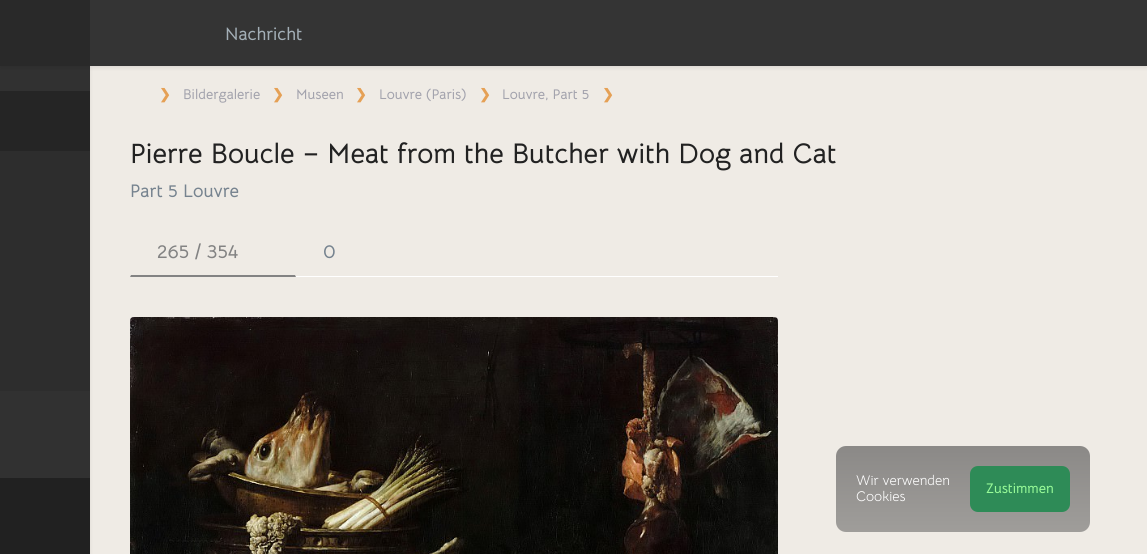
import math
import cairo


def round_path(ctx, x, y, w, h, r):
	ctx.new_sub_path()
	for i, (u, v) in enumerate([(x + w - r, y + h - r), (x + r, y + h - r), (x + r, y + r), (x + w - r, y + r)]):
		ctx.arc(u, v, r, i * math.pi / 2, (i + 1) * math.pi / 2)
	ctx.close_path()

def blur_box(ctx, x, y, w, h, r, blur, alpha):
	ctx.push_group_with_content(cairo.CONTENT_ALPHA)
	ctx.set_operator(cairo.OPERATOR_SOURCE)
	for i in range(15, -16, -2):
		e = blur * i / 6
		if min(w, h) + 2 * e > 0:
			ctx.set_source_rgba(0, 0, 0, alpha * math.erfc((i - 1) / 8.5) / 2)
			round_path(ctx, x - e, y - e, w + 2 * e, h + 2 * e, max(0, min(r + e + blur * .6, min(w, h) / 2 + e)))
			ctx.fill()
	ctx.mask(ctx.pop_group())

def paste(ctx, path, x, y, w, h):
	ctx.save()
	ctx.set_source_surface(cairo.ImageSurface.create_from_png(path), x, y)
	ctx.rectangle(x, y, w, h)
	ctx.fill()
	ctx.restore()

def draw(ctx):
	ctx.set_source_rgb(0.937, 0.918, 0.898)
	ctx.paint()
	ctx.set_source_rgb(0, 0, 0)
	blur_box(ctx, 0, 68, 90, 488, 0, 2, 0.08)
	ctx.set_source_rgb(0.192, 0.192, 0.192)
	ctx.rectangle(0, 66, 90, 412)
	ctx.fill()
	ctx.set_source_rgb(0, 0, 0)
	blur_box(ctx, 0, 2, 1147, 66, 0, 2, 0.08)
	ctx.set_source_rgb(0.204, 0.204, 0.204)
	ctx.rectangle(90, 0, 1057, 66)
	ctx.fill()
	ctx.set_source_rgb(0.161, 0.161, 0.161)
	ctx.rectangle(0, 0, 90, 66)
	ctx.fill()
	ctx.select_font_face('Bellota Text', cairo.FONT_SLANT_NORMAL, cairo.FONT_WEIGHT_BOLD)
	ctx.set_font_size(18)
	ctx.set_source_rgb(0.639, 0.686, 0.718)
	ctx.move_to(225, 40)
	ctx.show_text('Nachricht')
	ctx.set_source_rgb(0.145, 0.145, 0.145)
	ctx.rectangle(0, 91, 90, 60)
	ctx.fill()
	ctx.set_source_rgb(0.176, 0.176, 0.176)
	ctx.rectangle(0, 151, 90, 240)
	ctx.fill()
	ctx.set_source_rgb(0.129, 0.129, 0.129)
	ctx.rectangle(0, 478, 90, 76)
	ctx.fill()
	ctx.select_font_face('DejaVu Sans', cairo.FONT_SLANT_NORMAL, cairo.FONT_WEIGHT_BOLD)
	ctx.set_font_size(14)
	ctx.set_source_rgb(0.898, 0.627, 0.333)
	ctx.move_to(159, 99)
	ctx.show_text('❯')
	ctx.select_font_face('Bellota Text', cairo.FONT_SLANT_NORMAL, cairo.FONT_WEIGHT_BOLD)
	ctx.set_source_rgb(0.639, 0.639, 0.678)
	ctx.move_to(183, 99)
	ctx.show_text('Bildergalerie')
	ctx.select_font_face('DejaVu Sans', cairo.FONT_SLANT_NORMAL, cairo.FONT_WEIGHT_BOLD)
	ctx.set_source_rgb(0.898, 0.627, 0.333)
	ctx.move_to(272, 99)
	ctx.show_text('❯')
	ctx.select_font_face('Bellota Text', cairo.FONT_SLANT_NORMAL, cairo.FONT_WEIGHT_BOLD)
	ctx.set_source_rgb(0.639, 0.639, 0.678)
	ctx.move_to(296, 99)
	ctx.show_text('Museen')
	ctx.select_font_face('DejaVu Sans', cairo.FONT_SLANT_NORMAL, cairo.FONT_WEIGHT_BOLD)
	ctx.set_source_rgb(0.898, 0.627, 0.333)
	ctx.move_to(355, 99)
	ctx.show_text('❯')
	ctx.select_font_face('Bellota Text', cairo.FONT_SLANT_NORMAL, cairo.FONT_WEIGHT_BOLD)
	ctx.set_source_rgb(0.639, 0.639, 0.678)
	ctx.move_to(379, 99)
	ctx.show_text('Louvre (Paris)')
	ctx.select_font_face('DejaVu Sans', cairo.FONT_SLANT_NORMAL, cairo.FONT_WEIGHT_BOLD)
	ctx.set_source_rgb(0.898, 0.627, 0.333)
	ctx.move_to(479, 99)
	ctx.show_text('❯')
	ctx.select_font_face('Bellota Text', cairo.FONT_SLANT_NORMAL, cairo.FONT_WEIGHT_BOLD)
	ctx.set_source_rgb(0.639, 0.639, 0.678)
	ctx.move_to(502, 99)
	ctx.show_text('Louvre, Part 5')
	ctx.select_font_face('DejaVu Sans', cairo.FONT_SLANT_NORMAL, cairo.FONT_WEIGHT_BOLD)
	ctx.set_source_rgb(0.898, 0.627, 0.333)
	ctx.move_to(602, 99)
	ctx.show_text('❯')
	ctx.select_font_face('Bellota Text', cairo.FONT_SLANT_NORMAL, cairo.FONT_WEIGHT_BOLD)
	ctx.set_font_size(28)
	ctx.set_source_rgb(0.133, 0.133, 0.133)
	ctx.move_to(130, 163)
	ctx.show_text('Pierre Boucle – Meat from the Butcher with Dog and Cat')
	ctx.set_font_size(18.25)
	ctx.set_source_rgb(0.463, 0.514, 0.561)
	ctx.move_to(130, 197)
	ctx.show_text('Part 5 Louvre')
	ctx.set_source_rgb(1, 1, 1)
	ctx.rectangle(130, 276, 648, 1)
	ctx.fill()
	ctx.set_source_rgb(0.514, 0.514, 0.514)
	ctx.new_path()
	ctx.move_to(296, 277)
	ctx.line_to(295, 275)
	ctx.line_to(131, 275)
	ctx.line_to(130, 277)
	ctx.close_path()
	ctx.fill()
	ctx.set_font_size(19.5)
	ctx.move_to(157, 258)
	ctx.show_text('265 / 354')
	ctx.set_source_rgb(0.463, 0.514, 0.561)
	ctx.move_to(323, 258)
	ctx.show_text('0')
	paste(ctx, 'media/1.png', 130, 317, 648, 237)
	gradient = cairo.LinearGradient(963, 532, 963, 446)
	gradient.add_color_stop_rgba(0, 0.624, 0.616, 0.604, 1)
	gradient.add_color_stop_rgba(1, 0.545, 0.537, 0.529, 1)
	ctx.set_source(gradient)
	round_path(ctx, 836, 446, 254, 86, 10)
	ctx.fill()
	ctx.select_font_face('Bellota Text')
	ctx.set_font_size(14)
	ctx.set_source_rgb(1, 1, 1)
	ctx.move_to(856, 485)
	ctx.show_text('Wir verwenden')
	ctx.move_to(856, 501)
	ctx.show_text('Cookies')
	ctx.set_source_rgb(0.18, 0.545, 0.341)
	round_path(ctx, 970, 466, 100, 46, 8)
	ctx.fill()
	ctx.select_font_face('Bellota Text', cairo.FONT_SLANT_NORMAL, cairo.FONT_WEIGHT_BOLD)
	ctx.set_source_rgb(0.596, 0.984, 0.596)
	ctx.move_to(986, 493)
	ctx.show_text('Zustimmen')


surface = cairo.ImageSurface(cairo.FORMAT_RGB24, 1147, 554)
ctx = cairo.Context(surface)
options = cairo.FontOptions()
options.set_hint_metrics(cairo.HINT_METRICS_OFF)
options.set_hint_style(cairo.HINT_STYLE_NONE)
ctx.set_font_options(options)
ctx.set_miter_limit(4)
draw(ctx)
surface.write_to_png('image.png')
